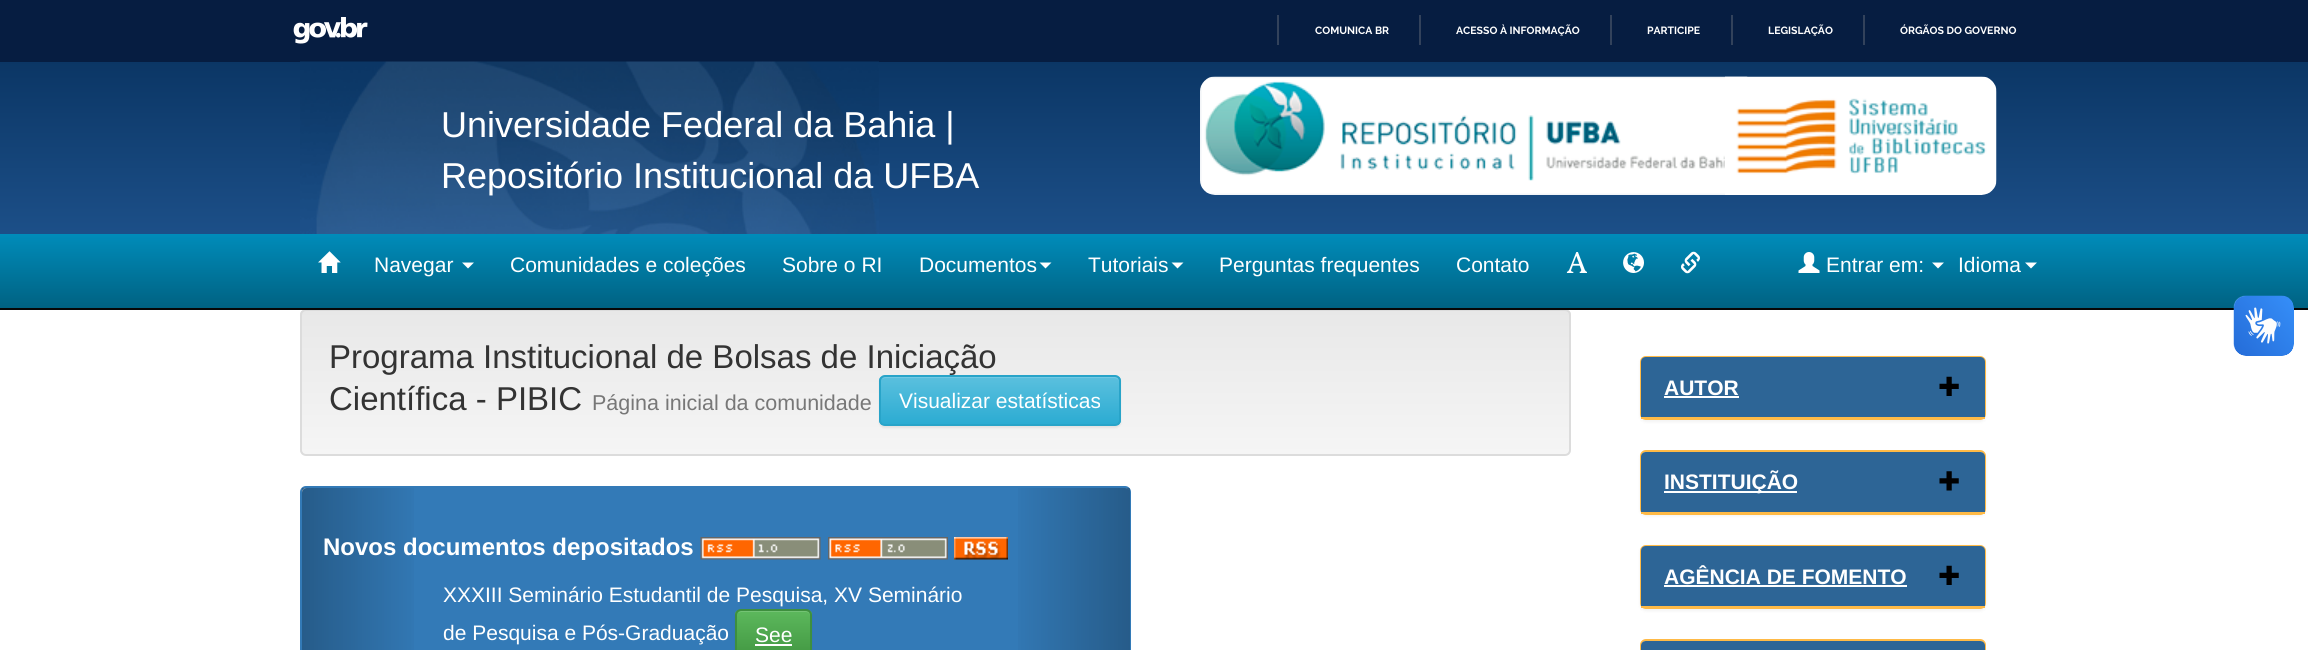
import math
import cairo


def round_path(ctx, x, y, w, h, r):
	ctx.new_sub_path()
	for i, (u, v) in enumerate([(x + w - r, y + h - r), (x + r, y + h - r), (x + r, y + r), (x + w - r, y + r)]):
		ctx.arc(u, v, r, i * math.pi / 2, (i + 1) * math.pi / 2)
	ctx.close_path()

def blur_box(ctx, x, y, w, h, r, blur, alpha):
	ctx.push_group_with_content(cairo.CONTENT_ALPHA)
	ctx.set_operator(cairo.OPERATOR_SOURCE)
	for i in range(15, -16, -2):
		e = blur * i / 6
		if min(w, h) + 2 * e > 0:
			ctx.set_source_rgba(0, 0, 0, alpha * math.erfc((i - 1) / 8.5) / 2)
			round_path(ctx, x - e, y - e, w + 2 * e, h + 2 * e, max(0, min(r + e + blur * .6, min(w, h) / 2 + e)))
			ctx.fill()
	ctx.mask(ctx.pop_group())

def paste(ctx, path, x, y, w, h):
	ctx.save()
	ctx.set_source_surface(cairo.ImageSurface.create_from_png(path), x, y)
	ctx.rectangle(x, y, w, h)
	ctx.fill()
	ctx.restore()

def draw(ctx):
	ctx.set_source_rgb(1, 1, 1)
	ctx.paint()
	ctx.set_source_rgb(0.027, 0.114, 0.255)
	ctx.rectangle(0, 0, 2308, 62)
	ctx.fill()
	paste(ctx, 'media/1.png', 293, 17, 75, 27)
	ctx.set_source_rgb(0.196, 0.259, 0.357)
	ctx.rectangle(1277, 15, 2, 30)
	ctx.fill()
	ctx.select_font_face('Raleway', cairo.FONT_SLANT_NORMAL, cairo.FONT_WEIGHT_BOLD)
	ctx.set_font_size(10.5)
	ctx.set_source_rgb(1, 1, 1)
	ctx.move_to(1315, 34)
	ctx.show_text('COMUNICA BR')
	ctx.set_source_rgb(0.196, 0.259, 0.357)
	ctx.rectangle(1419, 15, 2, 30)
	ctx.fill()
	ctx.set_source_rgb(1, 1, 1)
	ctx.move_to(1456, 34)
	ctx.show_text('ACESSO À INFORMAÇÃO')
	ctx.set_source_rgb(0.196, 0.259, 0.357)
	ctx.rectangle(1610, 15, 2, 30)
	ctx.fill()
	ctx.set_source_rgb(1, 1, 1)
	ctx.move_to(1647, 34)
	ctx.show_text('PARTICIPE')
	ctx.set_source_rgb(0.196, 0.259, 0.357)
	ctx.rectangle(1731, 15, 2, 30)
	ctx.fill()
	ctx.set_source_rgb(1, 1, 1)
	ctx.move_to(1768, 34)
	ctx.show_text('LEGISLAÇÃO')
	ctx.set_source_rgb(0.196, 0.259, 0.357)
	ctx.rectangle(1863, 15, 2, 30)
	ctx.fill()
	ctx.set_source_rgb(1, 1, 1)
	ctx.move_to(1900, 34)
	ctx.show_text('ÓRGÃOS DO GOVERNO')
	gradient = cairo.LinearGradient(1154, 61, 1154, 234)
	gradient.add_color_stop_rgba(0, 0.043, 0.212, 0.396, 1)
	gradient.add_color_stop_rgba(1, 0.11, 0.31, 0.533, 1)
	ctx.set_source(gradient)
	ctx.rectangle(0, 62, 2308, 172)
	ctx.fill()
	paste(ctx, 'media/2.png', 300, 61, 579, 173)
	ctx.select_font_face('Liberation Sans')
	ctx.set_font_size(36)
	ctx.set_source_rgb(1, 1, 1)
	ctx.move_to(441, 137)
	ctx.show_text('Universidade Federal da Bahia |')
	ctx.move_to(441, 188)
	ctx.show_text('Repositório Institucional da UFBA')
	paste(ctx, 'media/3.png', 1200, 76, 548, 119)
	paste(ctx, 'media/4.png', 1725, 76, 272, 119)
	gradient = cairo.LinearGradient(1154, 234, 1154, 308)
	gradient.add_color_stop_rgba(0, 0, 0.549, 0.729, 1)
	gradient.add_color_stop_rgba(1, 0, 0.384, 0.51, 1)
	ctx.set_source(gradient)
	ctx.rectangle(0, 234, 2308, 74)
	ctx.fill()
	ctx.save()
	round_path(ctx, 300, 309, 1271, 147, 6)
	ctx.clip()
	gradient = cairo.LinearGradient(935, 310, 935, 455)
	gradient.add_color_stop_rgba(0, 0.91, 0.91, 0.91, 1)
	gradient.add_color_stop_rgba(1, 0.961, 0.961, 0.961, 1)
	ctx.set_source(gradient)
	ctx.rectangle(300, 311, 1271, 144)
	ctx.fill()
	ctx.restore()
	round_path(ctx, 301, 310, 1269, 145, 5)
	ctx.set_source_rgb(0.863, 0.863, 0.863)
	ctx.stroke()
	ctx.set_source_rgb(0.031, 0.031, 0.031)
	ctx.rectangle(0, 308, 2308, 2)
	ctx.fill()
	paste(ctx, 'media/5.png', 318, 251, 23, 22)
	ctx.set_font_size(21)
	ctx.set_source_rgb(1, 1, 1)
	ctx.move_to(374, 272)
	ctx.show_text('Navegar')
	ctx.new_path()
	ctx.move_to(462, 262.5)
	ctx.line_to(474, 262.5)
	ctx.line_to(468, 268.5)
	ctx.close_path()
	ctx.fill()
	for x, y, s in [
		(510, 272, 'Comunidades e coleções'),
		(782, 272, 'Sobre o RI'),
		(919, 272, 'Documentos'),
	]:
		ctx.move_to(x, y)
		ctx.show_text(s)
	ctx.new_path()
	ctx.move_to(1039.5, 262.5)
	ctx.line_to(1051.5, 262.5)
	ctx.line_to(1045.5, 268.5)
	ctx.close_path()
	ctx.fill()
	ctx.move_to(1088, 272)
	ctx.show_text('Tutoriais')
	ctx.new_path()
	ctx.move_to(1171.5, 262.5)
	ctx.line_to(1183.5, 262.5)
	ctx.line_to(1177.5, 268.5)
	ctx.close_path()
	ctx.fill()
	ctx.move_to(1219, 272)
	ctx.show_text('Perguntas frequentes')
	ctx.move_to(1456, 272)
	ctx.show_text('Contato')
	paste(ctx, 'media/6.png', 1566, 252, 21, 21)
	paste(ctx, 'media/7.png', 1623, 252, 21, 21)
	paste(ctx, 'media/8.png', 1681, 251, 19, 23)
	paste(ctx, 'media/9.png', 1798, 252, 22, 21)
	ctx.move_to(1826, 272)
	ctx.show_text('Entrar em:')
	ctx.new_path()
	ctx.move_to(1932, 262.5)
	ctx.line_to(1944, 262.5)
	ctx.line_to(1938, 268.5)
	ctx.close_path()
	ctx.fill()
	ctx.move_to(1958, 272)
	ctx.show_text('Idioma')
	ctx.new_path()
	ctx.move_to(2025, 262.5)
	ctx.line_to(2037, 262.5)
	ctx.line_to(2031, 268.5)
	ctx.close_path()
	ctx.fill()
	paste(ctx, 'media/10.png', 2233, 295, 61, 61)
	paste(ctx, 'media/11.png', 2234, 296, 60, 60)
	ctx.set_font_size(33)
	ctx.set_source_rgb(0.2, 0.2, 0.2)
	ctx.move_to(329, 368)
	ctx.show_text('Programa Institucional de Bolsas de Iniciação')
	ctx.move_to(329, 410)
	ctx.show_text('Científica - PIBIC')
	ctx.set_font_size(21.5)
	ctx.set_source_rgb(0.467, 0.467, 0.467)
	ctx.move_to(592, 410)
	ctx.show_text('Página inicial da comunidade')
	ctx.set_source_rgb(0, 0, 0)
	blur_box(ctx, 879, 377, 242, 51, 6, 1, 0.07)
	ctx.save()
	round_path(ctx, 879, 375, 242, 51, 6)
	ctx.clip()
	gradient = cairo.LinearGradient(1000, 377, 1000, 425)
	gradient.add_color_stop_rgba(0, 0.357, 0.753, 0.871, 1)
	gradient.add_color_stop_rgba(1, 0.165, 0.671, 0.824, 1)
	ctx.set_source(gradient)
	ctx.rectangle(879, 377, 242, 48)
	ctx.fill()
	ctx.restore()
	ctx.set_source_rgb(0.451, 0.788, 0.89)
	ctx.new_path()
	ctx.move_to(885, 378)
	ctx.line_to(1114, 378)
	ctx.curve_to(1117, 378, 1119, 380, 1119, 382)
	ctx.curve_to(1119, 379, 1117, 377, 1114, 377)
	ctx.line_to(886, 377)
	ctx.curve_to(884, 377, 883, 378, 882, 379)
	ctx.close_path()
	ctx.fill()
	round_path(ctx, 880, 376, 240, 49, 5)
	ctx.set_source_rgb(0.157, 0.643, 0.788)
	ctx.stroke()
	ctx.set_font_size(21)
	ctx.set_source_rgb(1, 1, 1)
	ctx.move_to(899, 408)
	ctx.show_text('Visualizar estatísticas')
	round_path(ctx, 301, 487, 829, 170, 5)
	ctx.set_source_rgb(0.2, 0.478, 0.718)
	ctx.stroke()
	ctx.new_path()
	ctx.move_to(307, 488)
	ctx.line_to(1125, 488)
	ctx.curve_to(1128, 488, 1130, 490, 1130, 493)
	ctx.line_to(1130, 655)
	ctx.line_to(302, 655)
	ctx.line_to(302, 493)
	ctx.curve_to(302, 490, 304, 488, 307, 488)
	ctx.close_path()
	ctx.fill()
	gradient = cairo.LinearGradient(302, 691, 425, 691)
	gradient.add_color_stop_rgba(0, 0, 0, 0, 0.25)
	gradient.add_color_stop_rgba(1, 0, 0, 0, 0)
	ctx.set_source(gradient)
	ctx.rectangle(302, 488, 112, 162)
	ctx.fill()
	gradient = cairo.LinearGradient(1007, 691, 1130, 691)
	gradient.add_color_stop_rgba(0, 0, 0, 0, 0)
	gradient.add_color_stop_rgba(1, 0, 0, 0, 0.25)
	ctx.set_source(gradient)
	ctx.rectangle(1018, 488, 112, 162)
	ctx.fill()
	ctx.select_font_face('Liberation Sans', cairo.FONT_SLANT_NORMAL, cairo.FONT_WEIGHT_BOLD)
	ctx.set_font_size(24)
	ctx.set_source_rgb(1, 1, 1)
	ctx.move_to(323, 555)
	ctx.show_text('Novos documentos depositados')
	paste(ctx, 'media/12.png', 700, 537, 121, 23)
	paste(ctx, 'media/13.png', 828, 537, 120, 23)
	paste(ctx, 'media/14.png', 954, 537, 54, 23)
	ctx.select_font_face('Liberation Sans')
	ctx.set_font_size(21)
	ctx.move_to(443, 602)
	ctx.show_text('XXXIII Seminário Estudantil de Pesquisa, XV Seminário')
	ctx.move_to(443, 640)
	ctx.show_text('de Pesquisa e Pós-Graduação')
	ctx.set_source_rgb(0, 0, 0)
	blur_box(ctx, 735, 611, 77, 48, 6, 1, 0.07)
	ctx.save()
	round_path(ctx, 735, 609, 77, 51, 6)
	ctx.clip()
	gradient = cairo.LinearGradient(773, 611, 773, 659)
	gradient.add_color_stop_rgba(0, 0.361, 0.722, 0.361, 1)
	gradient.add_color_stop_rgba(1, 0.255, 0.588, 0.255, 1)
	ctx.set_source(gradient)
	ctx.rectangle(735, 611, 77, 39)
	ctx.fill()
	ctx.restore()
	ctx.set_source_rgb(0.455, 0.765, 0.455)
	ctx.new_path()
	ctx.move_to(741, 612)
	ctx.line_to(806, 612)
	ctx.curve_to(808, 612, 810, 614, 810, 616)
	ctx.curve_to(810, 613, 808, 611, 805, 611)
	ctx.line_to(742, 611)
	ctx.curve_to(740, 611, 739, 612, 738, 613)
	ctx.close_path()
	ctx.fill()
	round_path(ctx, 736, 610, 75, 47, 5)
	ctx.set_source_rgb(0.243, 0.561, 0.243)
	ctx.stroke()
	ctx.set_source_rgb(1, 1, 1)
	ctx.move_to(755, 642)
	ctx.show_text('See')
	ctx.rectangle(755, 644, 37, 2)
	ctx.fill()
	ctx.set_source_rgb(0, 0, 0)
	blur_box(ctx, 1640, 357, 346, 65, 6, 1.5, 0.05)
	round_path(ctx, 1641, 357, 344, 62, 5)
	ctx.set_source_rgb(1, 0.729, 0.275)
	ctx.stroke()
	ctx.new_path()
	ctx.move_to(1646, 357)
	ctx.line_to(1980, 357)
	ctx.curve_to(1983, 357, 1985, 359, 1985, 362)
	ctx.line_to(1985, 419)
	ctx.line_to(1641, 419)
	ctx.line_to(1641, 362)
	ctx.curve_to(1641, 359, 1643, 357, 1646, 357)
	ctx.close_path()
	ctx.fill()
	ctx.set_source_rgb(0.176, 0.396, 0.588)
	ctx.new_path()
	ctx.move_to(1646, 357)
	ctx.line_to(1980, 357)
	ctx.curve_to(1983, 357, 1985, 359, 1985, 362)
	ctx.line_to(1985, 417)
	ctx.line_to(1641, 417)
	ctx.line_to(1641, 362)
	ctx.curve_to(1641, 359, 1643, 357, 1646, 357)
	ctx.close_path()
	ctx.fill()
	ctx.select_font_face('Liberation Sans', cairo.FONT_SLANT_NORMAL, cairo.FONT_WEIGHT_BOLD)
	ctx.set_source_rgb(1, 1, 1)
	ctx.move_to(1664, 395)
	ctx.show_text('AUTOR')
	ctx.rectangle(1664, 396, 75, 2)
	ctx.fill()
	paste(ctx, 'media/15.png', 1939, 376, 20, 20)
	ctx.set_source_rgb(0, 0, 0)
	blur_box(ctx, 1640, 452, 346, 64, 6, 1.5, 0.05)
	round_path(ctx, 1641, 451, 344, 63, 5)
	ctx.set_source_rgb(1, 0.729, 0.275)
	ctx.stroke()
	ctx.set_source_rgb(0.176, 0.396, 0.588)
	ctx.new_path()
	ctx.move_to(1646, 452)
	ctx.line_to(1980, 452)
	ctx.curve_to(1983, 452, 1985, 454, 1985, 457)
	ctx.line_to(1985, 512)
	ctx.line_to(1641, 512)
	ctx.line_to(1641, 457)
	ctx.curve_to(1641, 454, 1643, 452, 1646, 452)
	ctx.close_path()
	ctx.fill()
	ctx.set_source_rgb(1, 0.729, 0.275)
	ctx.rectangle(1641, 512, 344, 2)
	ctx.fill()
	ctx.set_source_rgb(1, 1, 1)
	ctx.rectangle(1664, 491, 133, 2)
	ctx.fill()
	ctx.move_to(1664, 489)
	ctx.show_text('INSTITUIÇÃO')
	paste(ctx, 'media/16.png', 1939, 471, 20, 20)
	ctx.set_source_rgb(0, 0, 0)
	blur_box(ctx, 1640, 546, 346, 65, 6, 1.5, 0.05)
	round_path(ctx, 1641, 546, 344, 62, 5)
	ctx.set_source_rgb(1, 0.729, 0.275)
	ctx.stroke()
	ctx.new_path()
	ctx.move_to(1646, 546)
	ctx.line_to(1980, 546)
	ctx.curve_to(1983, 546, 1985, 548, 1985, 551)
	ctx.line_to(1985, 608)
	ctx.line_to(1641, 608)
	ctx.line_to(1641, 551)
	ctx.curve_to(1641, 548, 1643, 546, 1646, 546)
	ctx.close_path()
	ctx.fill()
	ctx.set_source_rgb(0.176, 0.396, 0.588)
	ctx.new_path()
	ctx.move_to(1646, 546)
	ctx.line_to(1980, 546)
	ctx.curve_to(1983, 546, 1985, 548, 1985, 551)
	ctx.line_to(1985, 606)
	ctx.line_to(1641, 606)
	ctx.line_to(1641, 551)
	ctx.curve_to(1641, 548, 1643, 546, 1646, 546)
	ctx.close_path()
	ctx.fill()
	ctx.set_source_rgb(1, 1, 1)
	ctx.move_to(1664, 584)
	ctx.show_text('AGÊNCIA DE FOMENTO')
	ctx.rectangle(1664, 585, 243, 2)
	ctx.fill()
	paste(ctx, 'media/15.png', 1939, 565, 20, 20)
	round_path(ctx, 1641, 640, 344, 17, 5)
	ctx.set_source_rgb(1, 0.729, 0.275)
	ctx.stroke()
	ctx.set_source_rgb(0.176, 0.396, 0.588)
	ctx.new_path()
	ctx.move_to(1646, 641)
	ctx.line_to(1980, 641)
	ctx.curve_to(1983, 641, 1985, 643, 1985, 646)
	ctx.line_to(1985, 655)
	ctx.line_to(1641, 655)
	ctx.line_to(1641, 646)
	ctx.curve_to(1641, 643, 1643, 641, 1646, 641)
	ctx.close_path()
	ctx.fill()


surface = cairo.ImageSurface(cairo.FORMAT_RGB24, 2308, 650)
ctx = cairo.Context(surface)
options = cairo.FontOptions()
options.set_hint_metrics(cairo.HINT_METRICS_OFF)
options.set_hint_style(cairo.HINT_STYLE_NONE)
ctx.set_font_options(options)
ctx.set_miter_limit(4)
draw(ctx)
surface.write_to_png('image.png')
